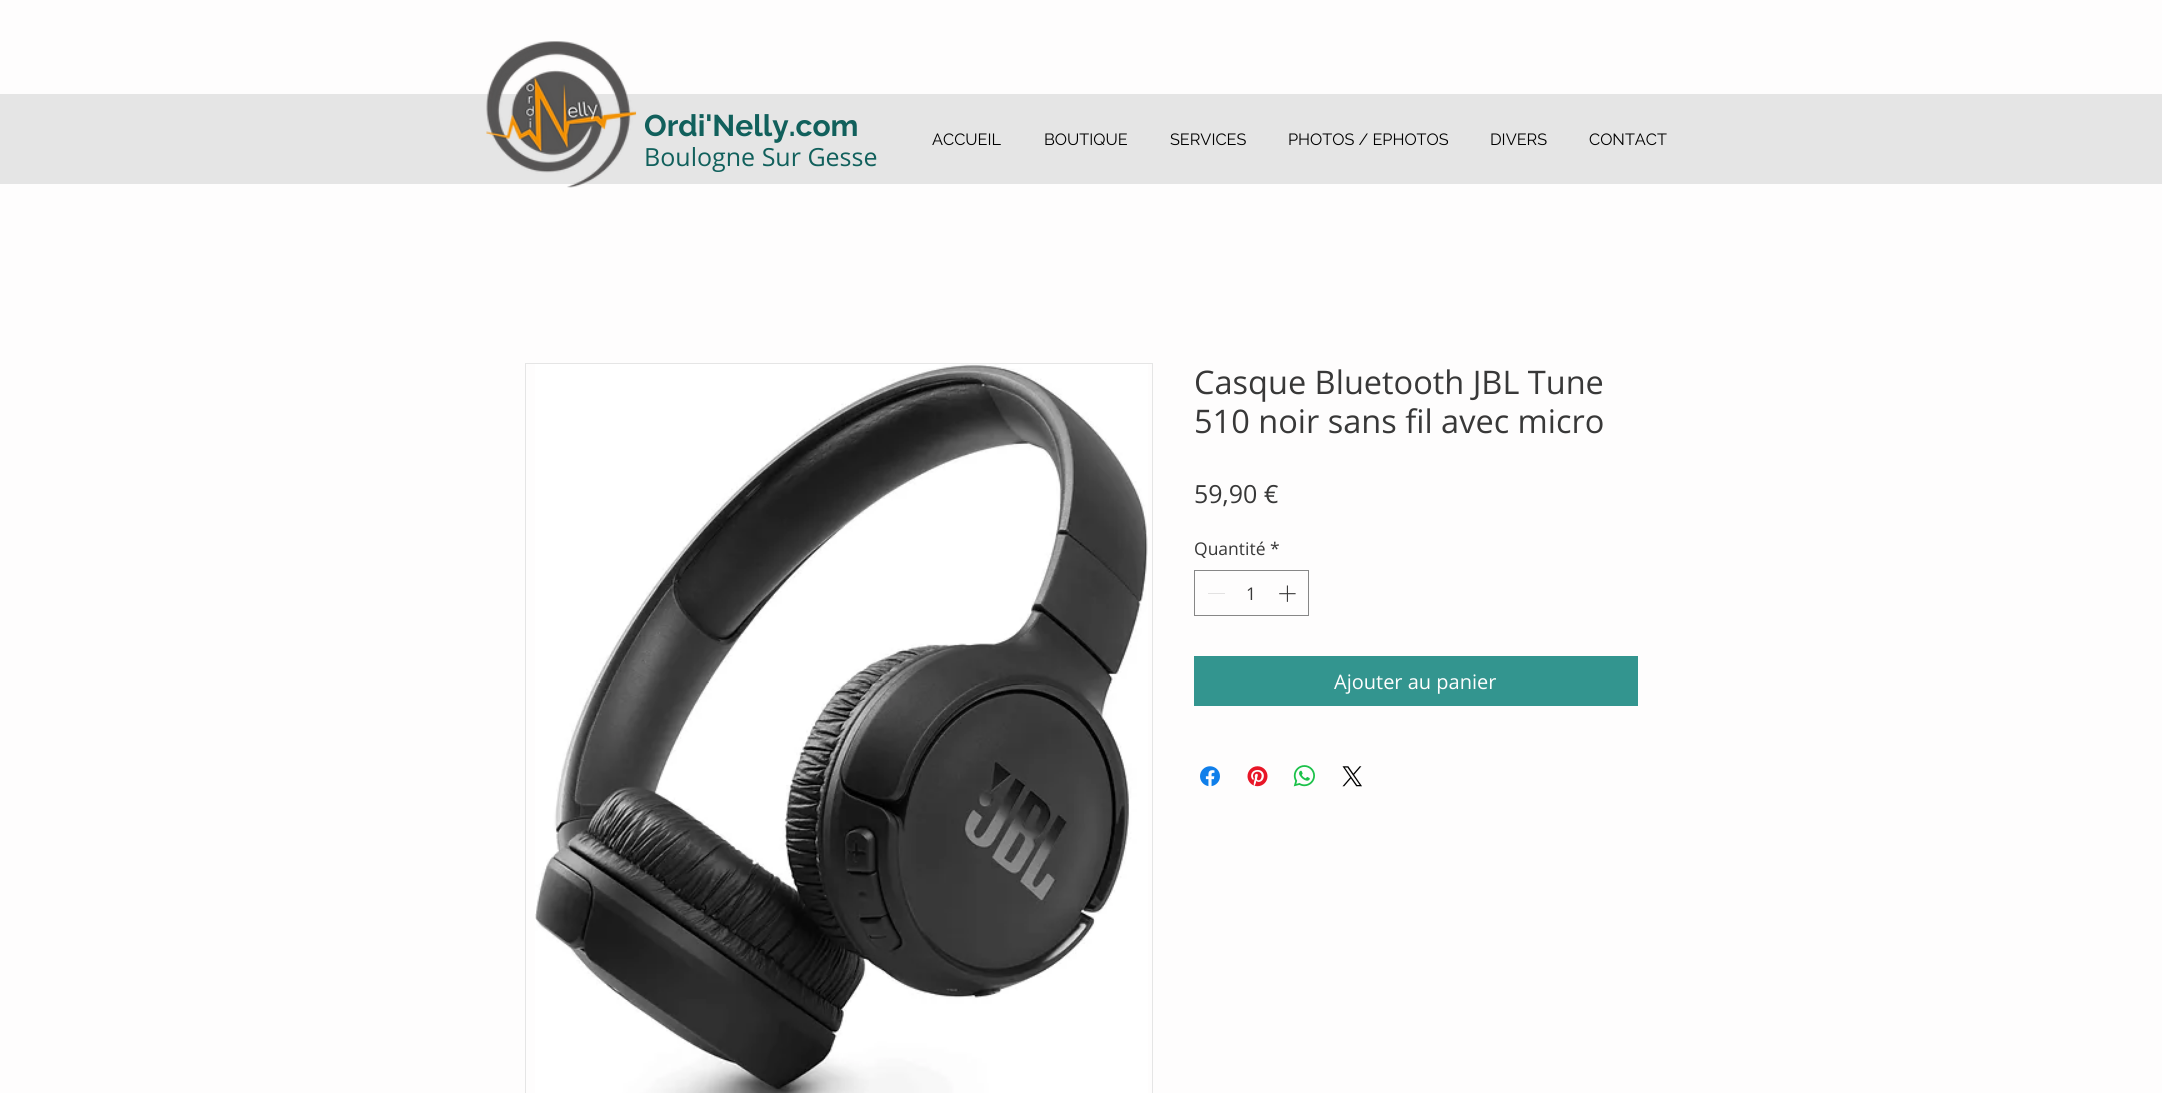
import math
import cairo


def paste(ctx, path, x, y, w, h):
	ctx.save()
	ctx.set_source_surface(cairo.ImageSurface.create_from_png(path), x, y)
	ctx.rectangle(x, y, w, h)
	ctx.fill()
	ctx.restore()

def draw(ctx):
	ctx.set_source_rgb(0.996, 0.992, 0.992)
	ctx.paint()
	ctx.set_source_rgb(0.898, 0.898, 0.898)
	ctx.rectangle(0, 94, 2162, 90)
	ctx.fill()
	paste(ctx, 'media/1.png', 486, 41, 151, 147)
	ctx.select_font_face('Raleway', cairo.FONT_SLANT_NORMAL, cairo.FONT_WEIGHT_BOLD)
	ctx.set_font_size(30)
	ctx.set_source_rgb(0.067, 0.376, 0.361)
	ctx.move_to(644, 136)
	ctx.show_text('Ordi\'Nelly.com')
	ctx.select_font_face('Open Sans')
	ctx.set_font_size(25)
	ctx.move_to(644, 166)
	ctx.show_text('Boulogne Sur Gesse')
	ctx.select_font_face('Raleway')
	ctx.set_font_size(16.25)
	ctx.set_source_rgb(0, 0, 0)
	for x, y, s in [
		(932, 145, 'ACCUEIL'),
		(1044, 145, 'BOUTIQUE'),
		(1170, 145, 'SERVICES'),
		(1288, 145, 'PHOTOS / EPHOTOS'),
		(1490, 145, 'DIVERS'),
		(1589, 145, 'CONTACT'),
	]:
		ctx.move_to(x, y)
		ctx.show_text(s)
	ctx.rectangle(525.5, 363.5, 627, 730)
	ctx.set_source_rgb(0.898, 0.898, 0.898)
	ctx.set_line_width(1)
	ctx.stroke()
	paste(ctx, 'media/2.png', 535, 364, 613, 729)
	ctx.select_font_face('Open Sans')
	ctx.set_font_size(32.5)
	ctx.set_source_rgb(0.22, 0.22, 0.22)
	ctx.move_to(1194, 394)
	ctx.show_text('Casque Bluetooth JBL Tune')
	ctx.move_to(1194, 433)
	ctx.show_text('510 noir sans fil avec micro')
	ctx.set_font_size(25)
	ctx.move_to(1194, 503)
	ctx.show_text('59,90 €')
	ctx.set_font_size(17.5)
	ctx.move_to(1194, 555)
	ctx.show_text('Quantité')
	ctx.move_to(1270, 555)
	ctx.show_text('*')
	ctx.rectangle(1194.5, 570.5, 114, 45)
	ctx.set_source_rgb(0.529, 0.529, 0.529)
	ctx.stroke()
	ctx.set_source_rgb(0.89, 0.886, 0.886)
	ctx.rectangle(1208, 593, 17, 1)
	ctx.fill()
	ctx.set_source_rgb(0.22, 0.22, 0.22)
	ctx.move_to(1246, 600)
	ctx.show_text('1')
	paste(ctx, 'media/3.png', 1279, 585, 17, 17)
	ctx.set_source_rgb(0.2, 0.584, 0.561)
	ctx.rectangle(1194, 656, 444, 50)
	ctx.fill()
	ctx.set_font_size(20)
	ctx.set_source_rgb(0.996, 0.992, 0.992)
	ctx.move_to(1334, 689)
	ctx.show_text('Ajouter au panier')
	paste(ctx, 'media/4.png', 1200, 766, 20, 21)
	paste(ctx, 'media/5.png', 1247, 766, 21, 21)
	paste(ctx, 'media/6.png', 1293, 765, 22, 22)
	paste(ctx, 'media/7.png', 1342, 766, 20, 21)


surface = cairo.ImageSurface(cairo.FORMAT_RGB24, 2162, 1093)
ctx = cairo.Context(surface)
options = cairo.FontOptions()
options.set_hint_metrics(cairo.HINT_METRICS_OFF)
options.set_hint_style(cairo.HINT_STYLE_NONE)
ctx.set_font_options(options)
ctx.set_miter_limit(4)
draw(ctx)
surface.write_to_png('image.png')
